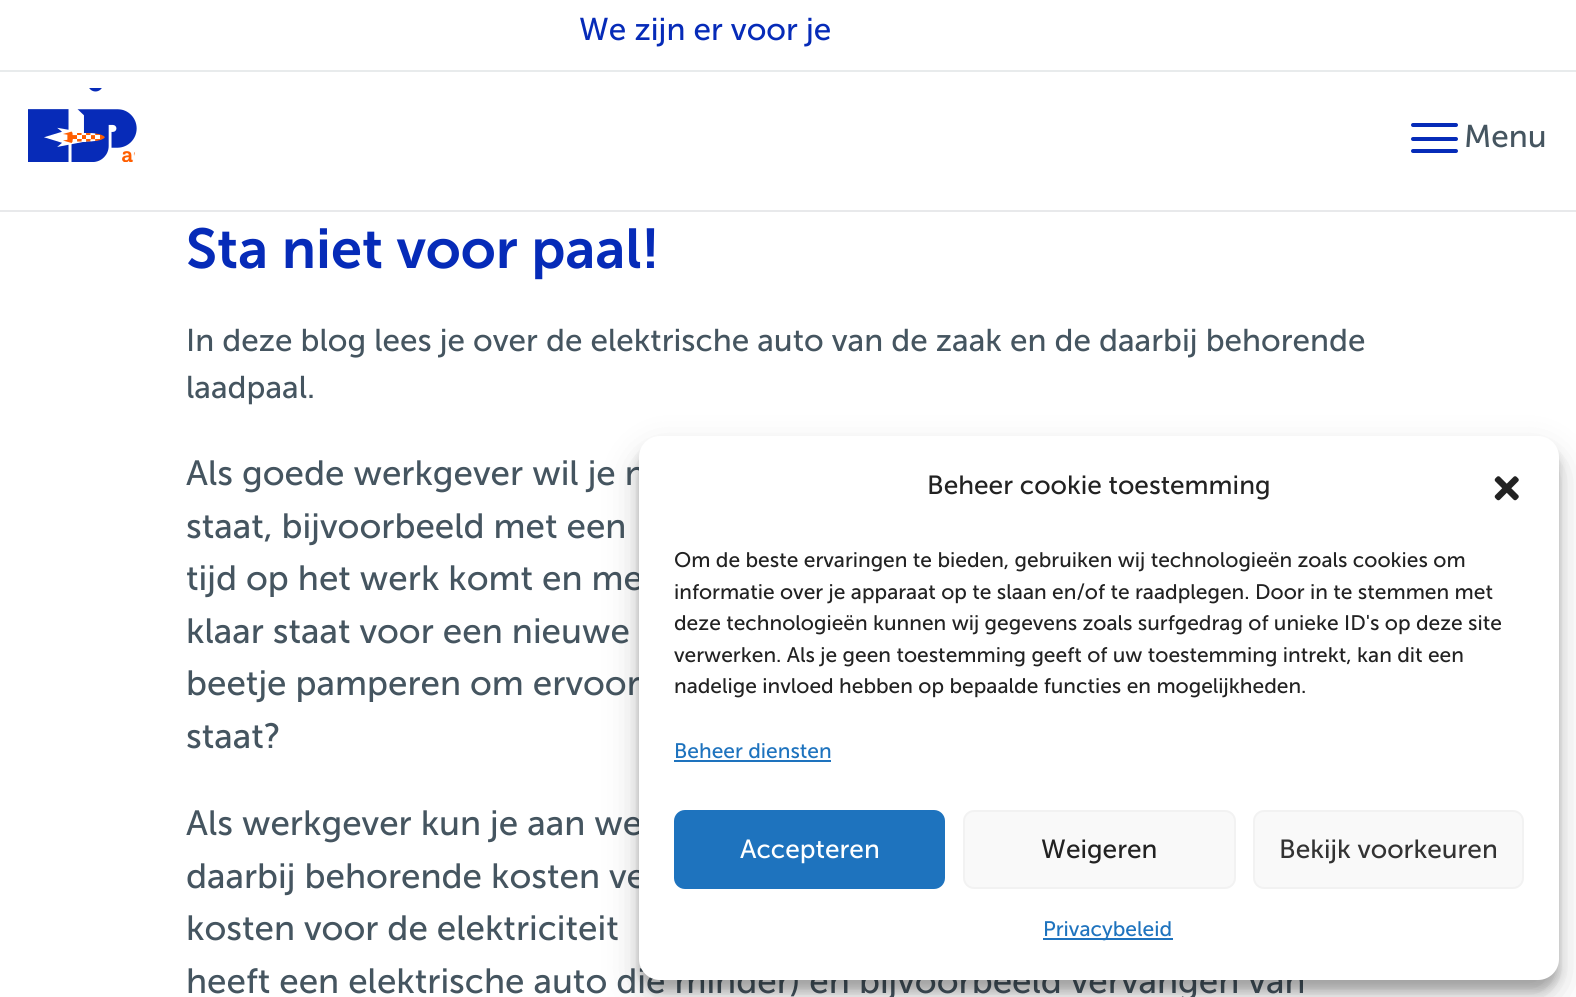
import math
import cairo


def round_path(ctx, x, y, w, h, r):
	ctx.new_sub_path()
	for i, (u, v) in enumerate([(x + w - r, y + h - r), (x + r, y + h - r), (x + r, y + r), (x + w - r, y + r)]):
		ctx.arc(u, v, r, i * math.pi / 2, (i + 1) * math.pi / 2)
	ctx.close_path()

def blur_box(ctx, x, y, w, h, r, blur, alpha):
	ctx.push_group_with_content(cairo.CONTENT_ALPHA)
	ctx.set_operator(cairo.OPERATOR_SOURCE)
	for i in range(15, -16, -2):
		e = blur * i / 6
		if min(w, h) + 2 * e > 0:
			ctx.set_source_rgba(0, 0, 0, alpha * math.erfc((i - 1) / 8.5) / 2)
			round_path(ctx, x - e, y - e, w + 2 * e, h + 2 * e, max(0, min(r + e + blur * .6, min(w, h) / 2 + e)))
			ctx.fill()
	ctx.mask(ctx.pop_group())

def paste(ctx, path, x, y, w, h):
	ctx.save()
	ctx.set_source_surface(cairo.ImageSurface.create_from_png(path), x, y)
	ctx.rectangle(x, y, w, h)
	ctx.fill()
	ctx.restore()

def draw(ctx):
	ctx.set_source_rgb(1, 1, 1)
	ctx.paint()
	ctx.set_source_rgb(0.91, 0.918, 0.925)
	ctx.rectangle(0, 70, 1576, 2)
	ctx.fill()
	ctx.select_font_face('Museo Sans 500')
	ctx.set_font_size(31.5)
	ctx.set_source_rgb(0.027, 0.169, 0.722)
	ctx.move_to(579, 40)
	ctx.show_text('We zijn er voor je')
	ctx.set_source_rgb(0.91, 0.914, 0.918)
	ctx.rectangle(0, 210, 1576, 2)
	ctx.fill()
	paste(ctx, 'media/1.png', 28, 88, 109, 74)
	ctx.set_source_rgb(0.027, 0.169, 0.722)
	round_path(ctx, 1411, 137, 47, 4, 2)
	ctx.fill()
	round_path(ctx, 1411, 123, 47, 4, 2)
	ctx.fill()
	round_path(ctx, 1411, 149, 47, 4, 2)
	ctx.fill()
	ctx.set_source_rgb(0.271, 0.333, 0.376)
	ctx.move_to(1464, 147)
	ctx.show_text('Menu')
	ctx.select_font_face('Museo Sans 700 SemiBold')
	ctx.set_font_size(56)
	ctx.set_source_rgb(0.027, 0.169, 0.722)
	ctx.move_to(186, 268)
	ctx.show_text('Sta niet voor paal!')
	ctx.select_font_face('Museo Sans 500')
	ctx.set_font_size(31.5)
	ctx.set_source_rgb(0.271, 0.333, 0.376)
	ctx.move_to(186, 351)
	ctx.show_text('In deze blog lees je over de elektrische auto van de zaak en de daarbij behorende')
	ctx.move_to(186, 398)
	ctx.show_text('laadpaal.')
	ctx.set_font_size(35)
	for x, y, s in [
		(186, 485, 'Als goede werkgever wil je n'),
		(186, 538, 'staat, bijvoorbeeld met een'),
		(186, 590, 'tijd op het werk komt en me'),
		(186, 643, 'klaar staat voor een nieuwe'),
		(186, 695, 'beetje pamperen om ervoor'),
		(186, 748, 'staat?'),
		(186, 835, 'Als werkgever kun je aan we'),
		(186, 888, 'daarbij behorende kosten ve'),
		(186, 940, 'kosten voor de elektriciteit'),
		(186, 993, 'heeft een elektrische auto die minder) en bijvoorbeeld vervangen van'),
	]:
		ctx.move_to(x, y)
		ctx.show_text(s)
	ctx.set_source_rgb(0, 0, 0)
	blur_box(ctx, 639, 446, 920, 545, 21, 5, 0.23)
	blur_box(ctx, 639, 453, 920, 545, 21, 17.5, 0.19)
	ctx.set_source_rgb(1, 1, 1)
	round_path(ctx, 639, 436, 920, 544, 21)
	ctx.fill()
	ctx.set_font_size(26.25)
	ctx.set_source_rgb(0.133, 0.133, 0.133)
	ctx.move_to(927, 494)
	ctx.show_text('Beheer cookie toestemming')
	paste(ctx, 'media/2.png', 1494, 476, 25, 25)
	ctx.set_font_size(21)
	for x, y, s in [
		(674, 567, 'Om de beste ervaringen te bieden, gebruiken wij technologieën zoals cookies om'),
		(674, 599, 'informatie over je apparaat op te slaan en/of te raadplegen. Door in te stemmen met'),
		(674, 630, 'deze technologieën kunnen wij gegevens zoals surfgedrag of unieke ID\'s op deze site'),
		(674, 662, 'verwerken. Als je geen toestemming geeft of uw toestemming intrekt, kan dit een'),
		(674, 693, 'nadelige invloed hebben op bepaalde functies en mogelijkheden.'),
	]:
		ctx.move_to(x, y)
		ctx.show_text(s)
	ctx.set_source_rgb(0.118, 0.451, 0.745)
	ctx.move_to(674, 758)
	ctx.show_text('Beheer diensten')
	ctx.rectangle(674, 760, 157, 2)
	ctx.fill()
	round_path(ctx, 675, 811, 269, 77, 10)
	ctx.fill_preserve()
	ctx.stroke()
	ctx.set_font_size(26.25)
	ctx.set_source_rgb(1, 1, 1)
	ctx.move_to(740, 858)
	ctx.show_text('Accepteren')
	ctx.set_source_rgb(0.976, 0.976, 0.976)
	round_path(ctx, 964, 811, 271, 77, 10)
	ctx.fill_preserve()
	ctx.set_source_rgb(0.949, 0.949, 0.949)
	ctx.stroke()
	ctx.set_source_rgb(0.133, 0.133, 0.133)
	ctx.move_to(1041, 858)
	ctx.show_text('Weigeren')
	ctx.set_source_rgb(0.976, 0.976, 0.976)
	round_path(ctx, 1254, 811, 269, 77, 10)
	ctx.fill_preserve()
	ctx.set_source_rgb(0.949, 0.949, 0.949)
	ctx.stroke()
	ctx.set_source_rgb(0.2, 0.2, 0.2)
	ctx.move_to(1279, 858)
	ctx.show_text('Bekijk voorkeuren')
	ctx.set_source_rgb(0.118, 0.451, 0.745)
	ctx.rectangle(1043, 938, 130, 2)
	ctx.fill()
	ctx.set_font_size(21)
	ctx.move_to(1043, 936)
	ctx.show_text('Privacybeleid')


surface = cairo.ImageSurface(cairo.FORMAT_RGB24, 1576, 997)
ctx = cairo.Context(surface)
options = cairo.FontOptions()
options.set_hint_metrics(cairo.HINT_METRICS_OFF)
options.set_hint_style(cairo.HINT_STYLE_NONE)
ctx.set_font_options(options)
ctx.set_miter_limit(4)
draw(ctx)
surface.write_to_png('image.png')
